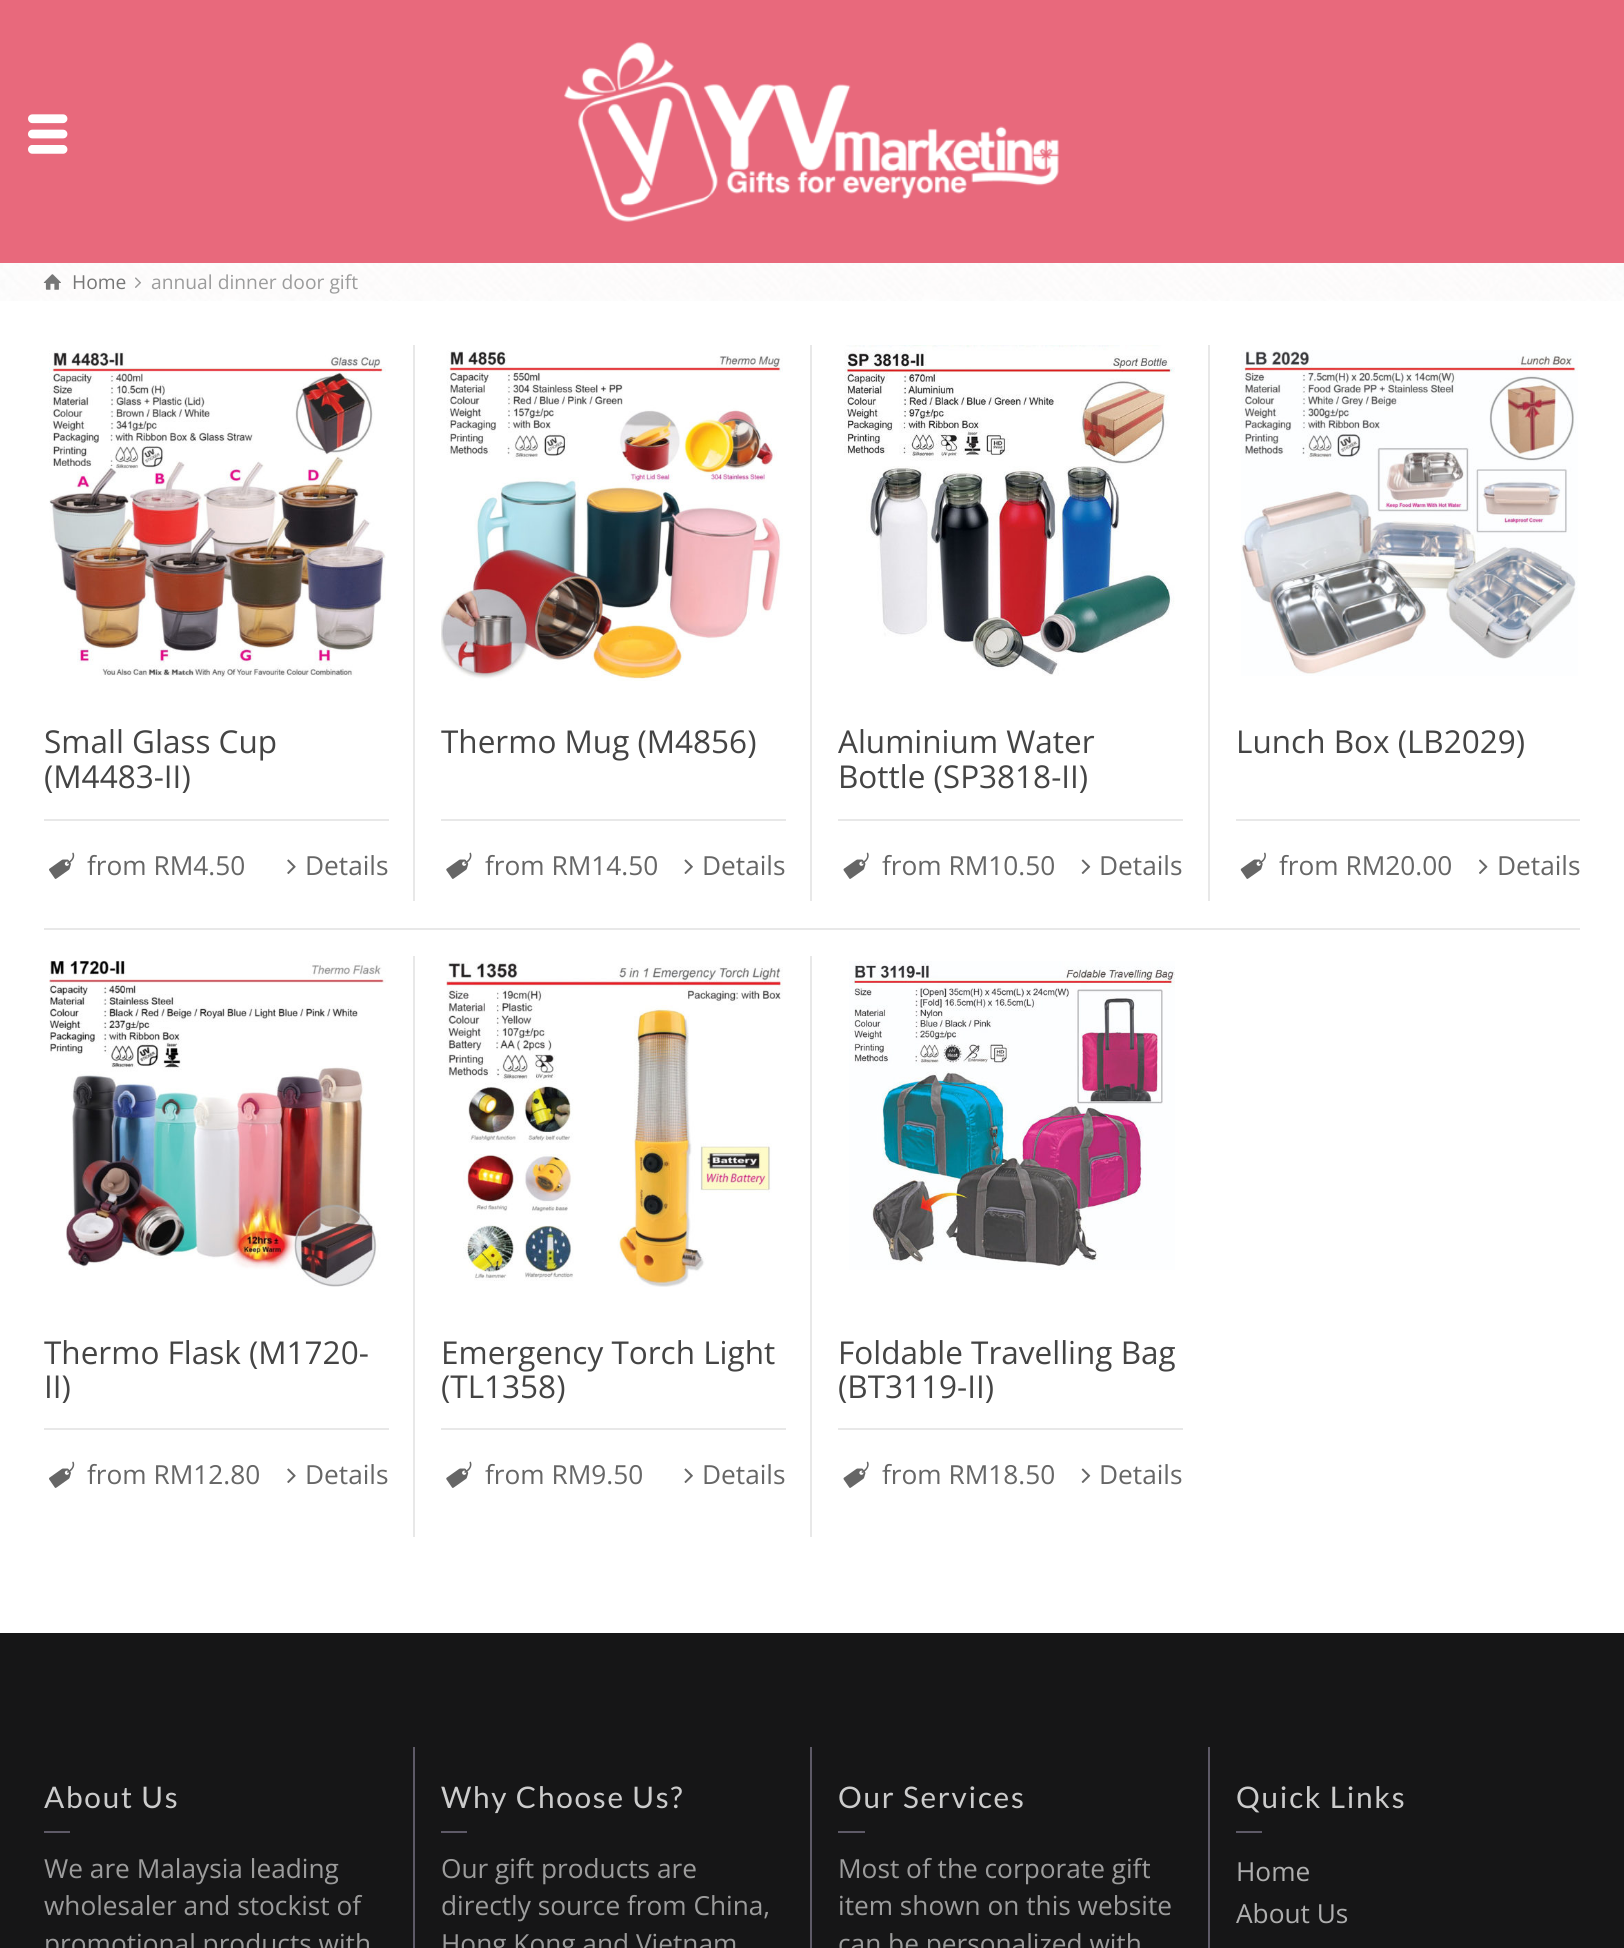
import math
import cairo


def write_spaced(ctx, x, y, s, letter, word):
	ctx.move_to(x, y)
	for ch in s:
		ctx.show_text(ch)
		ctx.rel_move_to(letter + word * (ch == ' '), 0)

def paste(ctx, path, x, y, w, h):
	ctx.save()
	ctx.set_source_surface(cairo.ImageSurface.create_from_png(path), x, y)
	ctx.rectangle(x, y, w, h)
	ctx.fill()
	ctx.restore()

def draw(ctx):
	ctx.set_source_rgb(1, 1, 1)
	ctx.paint()
	paste(ctx, 'media/1.png', 0, 263, 1624, 38)
	ctx.set_source_rgb(0.91, 0.412, 0.486)
	ctx.rectangle(0, 0, 1624, 263)
	ctx.fill()
	paste(ctx, 'media/2.png', 28, 114, 40, 40)
	paste(ctx, 'media/3.png', 564, 42, 495, 180)
	ctx.set_source_rgba(1, 0.973, 0.973, 0.3)
	ctx.rectangle(18, 266, 1588, 33)
	ctx.fill()
	ctx.set_source_rgba(1, 1, 1, 0.35)
	ctx.rectangle(0, 263, 1623, 38)
	ctx.fill()
	paste(ctx, 'media/4.png', 43, 274, 18, 16)
	ctx.select_font_face('Open Sans')
	ctx.set_font_size(19.25)
	ctx.set_source_rgb(0.467, 0.467, 0.467)
	ctx.move_to(72, 289)
	ctx.show_text('Home')
	paste(ctx, 'media/5.png', 135, 277, 7, 11)
	ctx.set_source_rgb(0.612, 0.612, 0.612)
	ctx.move_to(151, 289)
	ctx.show_text('annual dinner door gift')
	paste(ctx, 'media/6.png', 49, 350, 337, 330)
	ctx.set_font_size(31.5)
	ctx.set_source_rgb(0.267, 0.267, 0.267)
	ctx.move_to(44, 753)
	ctx.show_text('Small Glass Cup')
	ctx.move_to(44, 788)
	ctx.show_text('(M4483-II)')
	ctx.set_source_rgb(0.91, 0.91, 0.91)
	ctx.rectangle(44, 819, 345, 2)
	ctx.fill()
	paste(ctx, 'media/7.png', 49, 852, 26, 27)
	ctx.set_font_size(26.25)
	ctx.set_source_rgb(0.4, 0.4, 0.4)
	ctx.move_to(87, 875)
	ctx.show_text('from RM4.50')
	paste(ctx, 'media/8.png', 287, 859, 9, 15)
	ctx.move_to(305, 875)
	ctx.show_text('Details')
	ctx.set_source_rgb(0.91, 0.91, 0.91)
	ctx.rectangle(413, 345, 2, 556)
	ctx.fill()
	paste(ctx, 'media/9.png', 441, 350, 342, 331)
	ctx.set_font_size(31.5)
	ctx.set_source_rgb(0.267, 0.267, 0.267)
	ctx.move_to(441, 753)
	ctx.show_text('Thermo Mug (M4856)')
	ctx.set_source_rgb(0.91, 0.91, 0.91)
	ctx.rectangle(441, 819, 345, 2)
	ctx.fill()
	paste(ctx, 'media/10.png', 446, 852, 26, 27)
	ctx.set_font_size(26.25)
	ctx.set_source_rgb(0.4, 0.4, 0.4)
	ctx.move_to(485, 875)
	ctx.show_text('from RM14.50')
	paste(ctx, 'media/11.png', 684, 859, 9, 15)
	ctx.move_to(702, 875)
	ctx.show_text('Details')
	ctx.set_source_rgb(0.91, 0.91, 0.91)
	ctx.rectangle(810, 345, 2, 556)
	ctx.fill()
	paste(ctx, 'media/12.png', 844, 345, 331, 331)
	ctx.set_font_size(31.5)
	ctx.set_source_rgb(0.267, 0.267, 0.267)
	ctx.move_to(838, 753)
	ctx.show_text('Aluminium Water')
	ctx.move_to(838, 788)
	ctx.show_text('Bottle (SP3818-II)')
	ctx.set_source_rgb(0.91, 0.91, 0.91)
	ctx.rectangle(838, 819, 345, 2)
	ctx.fill()
	paste(ctx, 'media/13.png', 843, 852, 26, 27)
	ctx.set_font_size(26.25)
	ctx.set_source_rgb(0.4, 0.4, 0.4)
	ctx.move_to(882, 875)
	ctx.show_text('from RM10.50')
	paste(ctx, 'media/14.png', 1081, 859, 10, 15)
	ctx.move_to(1099, 875)
	ctx.show_text('Details')
	ctx.set_source_rgb(0.91, 0.91, 0.91)
	ctx.rectangle(1208, 345, 2, 556)
	ctx.fill()
	paste(ctx, 'media/15.png', 1241, 350, 337, 326)
	ctx.set_font_size(31.5)
	ctx.set_source_rgb(0.267, 0.267, 0.267)
	ctx.move_to(1236, 753)
	ctx.show_text('Lunch Box (LB2029)')
	ctx.set_source_rgb(0.91, 0.91, 0.91)
	ctx.rectangle(1236, 819, 344, 2)
	ctx.fill()
	paste(ctx, 'media/16.png', 1240, 852, 26, 27)
	ctx.set_font_size(26.25)
	ctx.set_source_rgb(0.4, 0.4, 0.4)
	ctx.move_to(1279, 875)
	ctx.show_text('from RM20.00')
	paste(ctx, 'media/17.png', 1479, 859, 9, 15)
	ctx.move_to(1497, 875)
	ctx.show_text('Details')
	ctx.set_source_rgb(0.91, 0.91, 0.91)
	ctx.rectangle(44, 928, 1536, 2)
	ctx.fill()
	paste(ctx, 'media/18.png', 49, 960, 337, 327)
	ctx.set_font_size(31.5)
	ctx.set_source_rgb(0.267, 0.267, 0.267)
	ctx.move_to(44, 1364)
	ctx.show_text('Thermo Flask (M1720-')
	ctx.move_to(44, 1398)
	ctx.show_text('II)')
	ctx.set_source_rgb(0.91, 0.91, 0.91)
	ctx.rectangle(44, 1428, 345, 2)
	ctx.fill()
	paste(ctx, 'media/7.png', 49, 1461, 26, 27)
	ctx.set_font_size(26.25)
	ctx.set_source_rgb(0.4, 0.4, 0.4)
	ctx.move_to(87, 1484)
	ctx.show_text('from RM12.80')
	paste(ctx, 'media/8.png', 287, 1468, 9, 15)
	ctx.move_to(305, 1484)
	ctx.show_text('Details')
	ctx.set_source_rgb(0.91, 0.91, 0.91)
	ctx.rectangle(413, 956, 2, 581)
	ctx.fill()
	paste(ctx, 'media/19.png', 446, 961, 337, 326)
	ctx.set_font_size(31.5)
	ctx.set_source_rgb(0.267, 0.267, 0.267)
	ctx.move_to(441, 1364)
	ctx.show_text('Emergency Torch Light')
	ctx.move_to(441, 1398)
	ctx.show_text('(TL1358)')
	ctx.set_source_rgb(0.91, 0.91, 0.91)
	ctx.rectangle(441, 1428, 345, 2)
	ctx.fill()
	paste(ctx, 'media/10.png', 446, 1461, 26, 27)
	ctx.set_font_size(26.25)
	ctx.set_source_rgb(0.4, 0.4, 0.4)
	ctx.move_to(485, 1484)
	ctx.show_text('from RM9.50')
	paste(ctx, 'media/11.png', 684, 1468, 9, 15)
	ctx.move_to(702, 1484)
	ctx.show_text('Details')
	ctx.set_source_rgb(0.91, 0.91, 0.91)
	ctx.rectangle(810, 956, 2, 581)
	ctx.fill()
	paste(ctx, 'media/20.png', 849, 961, 326, 309)
	ctx.set_font_size(31.5)
	ctx.set_source_rgb(0.267, 0.267, 0.267)
	ctx.move_to(838, 1364)
	ctx.show_text('Foldable Travelling Bag')
	ctx.move_to(838, 1398)
	ctx.show_text('(BT3119-II)')
	ctx.set_source_rgb(0.91, 0.91, 0.91)
	ctx.rectangle(838, 1428, 345, 2)
	ctx.fill()
	paste(ctx, 'media/13.png', 843, 1461, 26, 27)
	ctx.set_font_size(26.25)
	ctx.set_source_rgb(0.4, 0.4, 0.4)
	ctx.move_to(882, 1484)
	ctx.show_text('from RM18.50')
	paste(ctx, 'media/14.png', 1081, 1468, 10, 15)
	ctx.move_to(1099, 1484)
	ctx.show_text('Details')
	ctx.set_source_rgb(0.086, 0.086, 0.09)
	ctx.rectangle(0, 1633, 1624, 315)
	ctx.fill()
	ctx.select_font_face('Lato')
	ctx.set_font_size(29.75)
	ctx.set_source_rgb(0.8, 0.8, 0.8)
	write_spaced(ctx, 44, 1808, 'About Us', 1.75, 0)
	ctx.set_source_rgb(0.369, 0.353, 0.404)
	ctx.rectangle(44, 1831, 26, 2)
	ctx.fill()
	ctx.select_font_face('Open Sans')
	ctx.set_font_size(26.25)
	ctx.set_source_rgb(0.612, 0.612, 0.612)
	for x, y, s in [
		(44, 1878, 'We are Malaysia leading'),
		(44, 1915, 'wholesaler and stockist of'),
		(44, 1953, 'promotional products with'),
	]:
		ctx.move_to(x, y)
		ctx.show_text(s)
	ctx.set_source_rgb(0.369, 0.353, 0.404)
	ctx.rectangle(413, 1747, 2, 201)
	ctx.fill()
	ctx.select_font_face('Lato')
	ctx.set_font_size(29.75)
	ctx.set_source_rgb(0.8, 0.8, 0.8)
	write_spaced(ctx, 441, 1808, 'Why Choose Us?', 1.75, 0)
	ctx.set_source_rgb(0.369, 0.353, 0.404)
	ctx.rectangle(441, 1831, 26, 2)
	ctx.fill()
	ctx.select_font_face('Open Sans')
	ctx.set_font_size(26.25)
	ctx.set_source_rgb(0.612, 0.612, 0.612)
	for x, y, s in [
		(441, 1878, 'Our gift products are'),
		(441, 1915, 'directly source from China,'),
		(441, 1953, 'Hong Kong and Vietnam'),
	]:
		ctx.move_to(x, y)
		ctx.show_text(s)
	ctx.set_source_rgb(0.369, 0.353, 0.404)
	ctx.rectangle(810, 1747, 2, 201)
	ctx.fill()
	ctx.select_font_face('Lato')
	ctx.set_font_size(29.75)
	ctx.set_source_rgb(0.8, 0.8, 0.8)
	write_spaced(ctx, 838, 1808, 'Our Services', 1.75, 0)
	ctx.set_source_rgb(0.369, 0.353, 0.404)
	ctx.rectangle(838, 1831, 27, 2)
	ctx.fill()
	ctx.select_font_face('Open Sans')
	ctx.set_font_size(26.25)
	ctx.set_source_rgb(0.612, 0.612, 0.612)
	for x, y, s in [
		(838, 1878, 'Most of the corporate gift'),
		(838, 1915, 'item shown on this website'),
		(838, 1953, 'can be personalized with'),
	]:
		ctx.move_to(x, y)
		ctx.show_text(s)
	ctx.set_source_rgb(0.369, 0.353, 0.404)
	ctx.rectangle(1208, 1747, 2, 201)
	ctx.fill()
	ctx.select_font_face('Lato')
	ctx.set_font_size(29.75)
	ctx.set_source_rgb(0.8, 0.8, 0.8)
	write_spaced(ctx, 1236, 1808, 'Quick Links', 1.75, 0)
	ctx.set_source_rgb(0.369, 0.353, 0.404)
	ctx.rectangle(1236, 1831, 26, 2)
	ctx.fill()
	ctx.select_font_face('Open Sans')
	ctx.set_font_size(26.25)
	ctx.set_source_rgb(0.682, 0.682, 0.682)
	ctx.move_to(1236, 1881)
	ctx.show_text('Home')
	ctx.move_to(1236, 1923)
	ctx.show_text('About Us')


surface = cairo.ImageSurface(cairo.FORMAT_RGB24, 1624, 1948)
ctx = cairo.Context(surface)
options = cairo.FontOptions()
options.set_hint_metrics(cairo.HINT_METRICS_OFF)
options.set_hint_style(cairo.HINT_STYLE_NONE)
ctx.set_font_options(options)
ctx.set_miter_limit(4)
draw(ctx)
surface.write_to_png('image.png')
